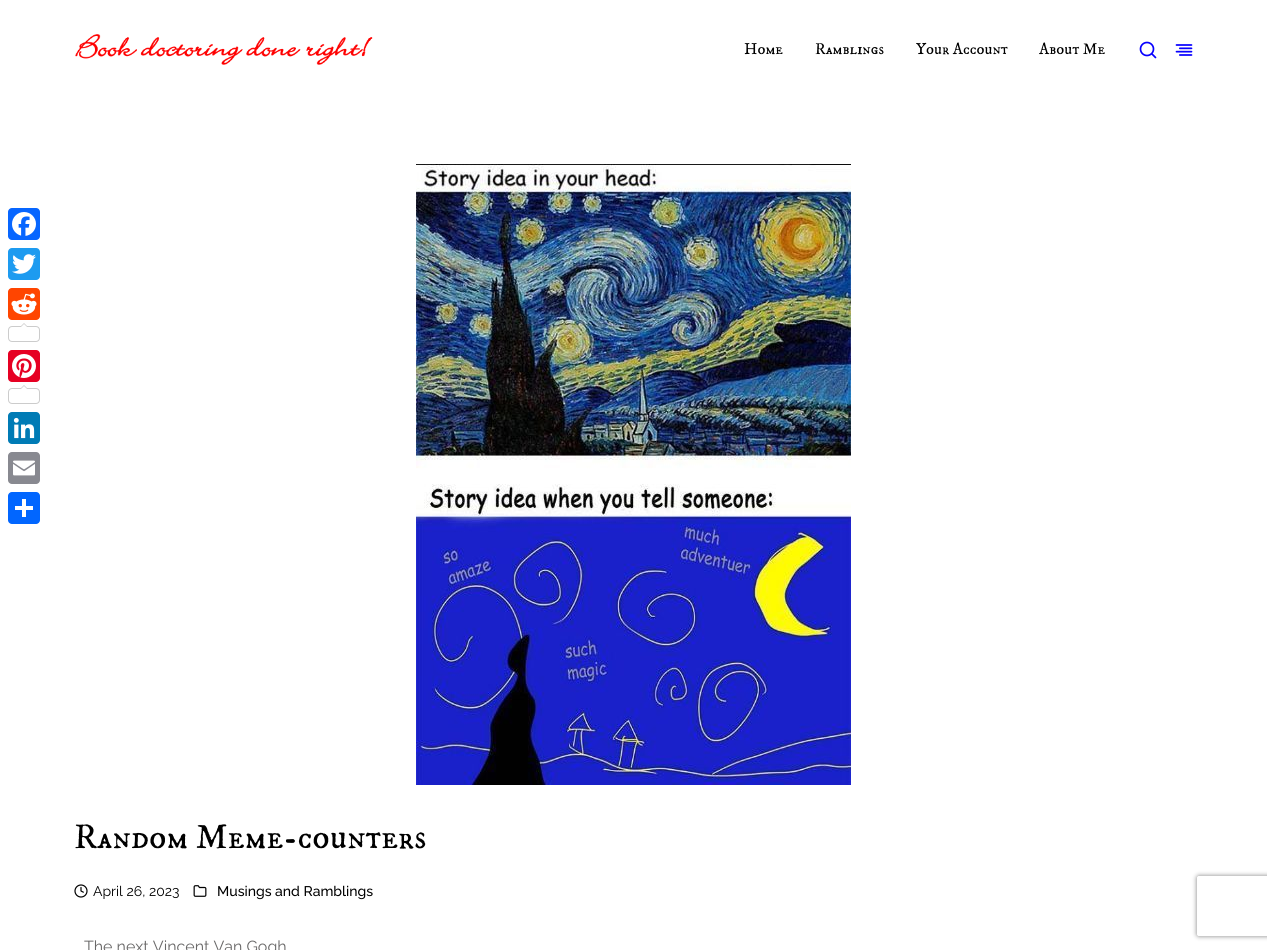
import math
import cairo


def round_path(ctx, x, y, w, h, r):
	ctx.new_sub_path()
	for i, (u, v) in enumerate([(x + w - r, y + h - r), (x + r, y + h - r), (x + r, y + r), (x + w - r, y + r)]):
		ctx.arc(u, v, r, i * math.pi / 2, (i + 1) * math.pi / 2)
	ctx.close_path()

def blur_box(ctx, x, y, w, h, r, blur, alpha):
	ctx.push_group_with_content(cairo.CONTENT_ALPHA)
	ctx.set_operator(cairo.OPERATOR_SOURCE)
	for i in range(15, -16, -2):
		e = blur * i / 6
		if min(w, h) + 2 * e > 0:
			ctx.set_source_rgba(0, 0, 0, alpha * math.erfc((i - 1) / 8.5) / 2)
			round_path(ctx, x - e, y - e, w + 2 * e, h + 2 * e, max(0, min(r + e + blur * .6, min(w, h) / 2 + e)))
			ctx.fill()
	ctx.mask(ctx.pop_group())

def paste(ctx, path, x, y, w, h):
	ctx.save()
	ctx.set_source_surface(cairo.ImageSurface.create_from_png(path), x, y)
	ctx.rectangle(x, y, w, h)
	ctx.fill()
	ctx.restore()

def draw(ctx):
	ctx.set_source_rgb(1, 1, 1)
	ctx.paint()
	ctx.set_source_rgb(0.031, 0.4, 1)
	round_path(ctx, 8, 208, 32, 32, 4)
	ctx.fill()
	paste(ctx, 'media/1.png', 12, 212, 24, 24)
	ctx.set_source_rgb(0.114, 0.608, 0.941)
	round_path(ctx, 8, 248, 32, 32, 4)
	ctx.fill()
	paste(ctx, 'media/2.png', 12, 254, 24, 20)
	ctx.set_source_rgb(1, 0.271, 0)
	round_path(ctx, 8, 288, 32, 32, 4)
	ctx.fill()
	paste(ctx, 'media/3.png', 11, 293, 26, 22)
	round_path(ctx, 8.5, 326.5, 31, 15, 3.5)
	ctx.set_source_rgb(0.8, 0.8, 0.8)
	ctx.set_line_width(1)
	ctx.stroke()
	ctx.new_path()
	ctx.move_to(28, 327)
	ctx.line_to(20, 327)
	ctx.line_to(24, 323)
	ctx.close_path()
	ctx.fill()
	ctx.set_source_rgb(1, 1, 1)
	ctx.new_path()
	ctx.move_to(28, 328)
	ctx.line_to(20, 328)
	ctx.line_to(24, 324)
	ctx.close_path()
	ctx.fill()
	ctx.set_source_rgb(0.902, 0, 0.137)
	round_path(ctx, 8, 350, 32, 32, 4)
	ctx.fill()
	paste(ctx, 'media/4.png', 12, 354, 24, 24)
	round_path(ctx, 8.5, 388.5, 31, 15, 3.5)
	ctx.set_source_rgb(0.8, 0.8, 0.8)
	ctx.stroke()
	ctx.new_path()
	ctx.move_to(28, 389)
	ctx.line_to(20, 389)
	ctx.line_to(24, 385)
	ctx.close_path()
	ctx.fill()
	ctx.set_source_rgb(1, 1, 1)
	ctx.new_path()
	ctx.move_to(28, 390)
	ctx.line_to(20, 390)
	ctx.line_to(24, 386)
	ctx.close_path()
	ctx.fill()
	ctx.set_source_rgb(0, 0.482, 0.71)
	round_path(ctx, 8, 412, 32, 32, 4)
	ctx.fill()
	paste(ctx, 'media/5.png', 13, 417, 22, 22)
	ctx.set_source_rgb(0.533, 0.537, 0.565)
	round_path(ctx, 8, 452, 32, 32, 4)
	ctx.fill()
	paste(ctx, 'media/6.png', 13, 460, 22, 16)
	ctx.set_source_rgb(0.004, 0.4, 1)
	round_path(ctx, 8, 492, 32, 32, 4)
	ctx.fill()
	ctx.set_source_rgb(1, 1, 1)
	ctx.rectangle(22, 499, 4, 18)
	ctx.fill()
	ctx.rectangle(15, 506, 18, 4)
	ctx.fill()
	paste(ctx, 'media/7.png', 75, 34, 298, 31)
	ctx.select_font_face('IM FELL DW Pica SC')
	ctx.set_font_size(16)
	ctx.set_source_rgb(0, 0, 0)
	for x, y, s in [
		(744, 54, 'Home'),
		(815, 54, 'Ramblings'),
		(916, 54, 'Your Account'),
		(1039, 54, 'About Me'),
	]:
		ctx.move_to(x, y)
		ctx.show_text(s)
	ctx.new_path()
	ctx.arc(1147, 49, 6.5, 0, 2 * math.pi)
	ctx.set_source_rgb(0.031, 0, 1)
	ctx.set_line_width(1.7)
	ctx.stroke()
	ctx.new_path()
	ctx.move_to(1155.5, 57.5)
	ctx.line_to(1152, 54)
	ctx.set_line_cap(cairo.LINE_CAP_ROUND)
	ctx.set_line_join(cairo.LINE_JOIN_ROUND)
	ctx.stroke()
	paste(ctx, 'media/8.png', 1175, 44, 18, 12)
	paste(ctx, 'media/9.png', 416, 164, 435, 621)
	ctx.set_font_size(35)
	ctx.set_source_rgb(0, 0, 0)
	ctx.move_to(74, 848)
	ctx.show_text('Random Meme-counters')
	paste(ctx, 'media/10.png', 74, 884, 14, 14)
	ctx.select_font_face('Raleway Thin')
	ctx.set_font_size(14)
	ctx.move_to(93, 896)
	ctx.show_text('April 26, 2023')
	paste(ctx, 'media/11.png', 193, 885, 14, 12)
	ctx.select_font_face('Raleway Medium')
	ctx.move_to(217, 896)
	ctx.show_text('Musings and Ramblings')
	ctx.select_font_face('Raleway Thin')
	ctx.set_font_size(16)
	ctx.set_source_rgb(0.412, 0.408, 0.408)
	ctx.move_to(84, 952)
	ctx.show_text('The next Vincent Van Gogh')
	ctx.save()
	ctx.set_fill_rule(cairo.FILL_RULE_EVEN_ODD)
	ctx.new_path()
	ctx.move_to(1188, 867)
	ctx.line_to(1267, 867)
	ctx.line_to(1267, 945)
	ctx.line_to(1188, 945)
	ctx.close_path()
	ctx.move_to(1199, 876)
	ctx.line_to(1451, 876)
	ctx.curve_to(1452, 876, 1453, 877, 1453, 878)
	ctx.line_to(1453, 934)
	ctx.curve_to(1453, 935, 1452, 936, 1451, 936)
	ctx.line_to(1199, 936)
	ctx.curve_to(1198, 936, 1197, 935, 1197, 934)
	ctx.line_to(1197, 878)
	ctx.curve_to(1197, 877, 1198, 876, 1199, 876)
	ctx.close_path()
	ctx.clip()
	ctx.set_source_rgb(0.502, 0.502, 0.502)
	blur_box(ctx, 1197, 876, 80, 60, 2, 2.5, 1)
	ctx.restore()


surface = cairo.ImageSurface(cairo.FORMAT_RGB24, 1267, 950)
ctx = cairo.Context(surface)
options = cairo.FontOptions()
options.set_hint_metrics(cairo.HINT_METRICS_OFF)
options.set_hint_style(cairo.HINT_STYLE_NONE)
ctx.set_font_options(options)
ctx.set_miter_limit(4)
draw(ctx)
surface.write_to_png('image.png')
